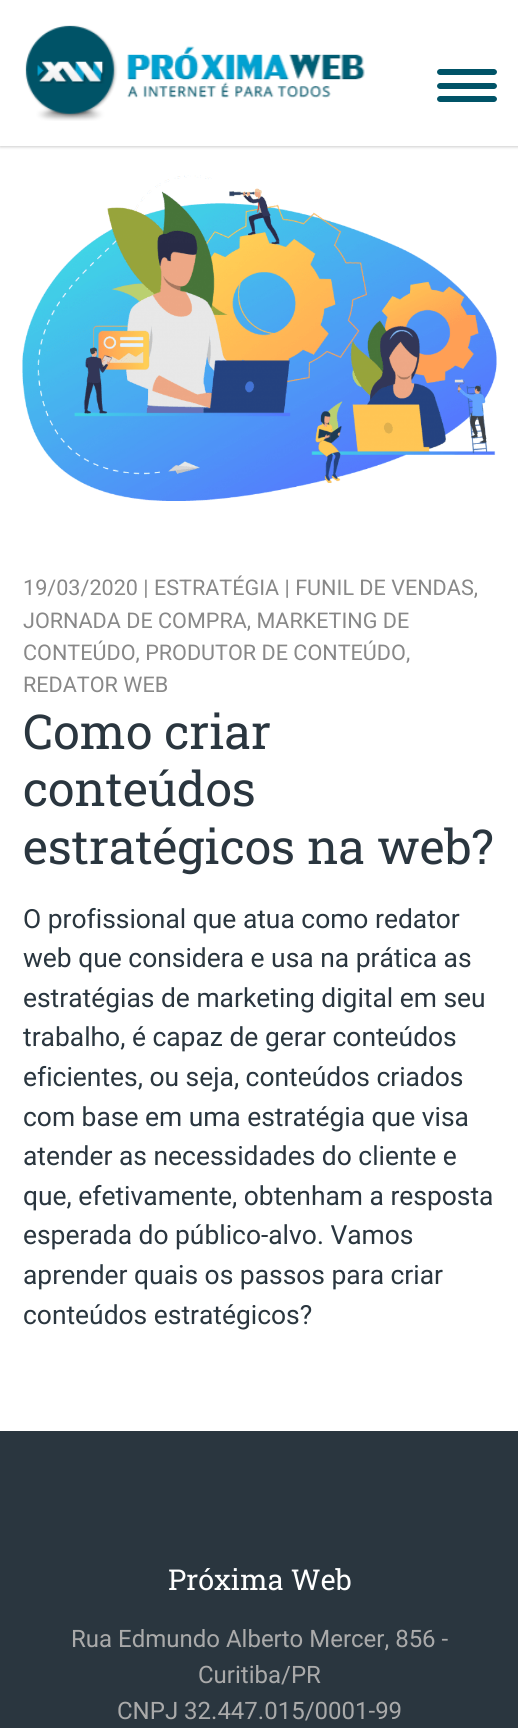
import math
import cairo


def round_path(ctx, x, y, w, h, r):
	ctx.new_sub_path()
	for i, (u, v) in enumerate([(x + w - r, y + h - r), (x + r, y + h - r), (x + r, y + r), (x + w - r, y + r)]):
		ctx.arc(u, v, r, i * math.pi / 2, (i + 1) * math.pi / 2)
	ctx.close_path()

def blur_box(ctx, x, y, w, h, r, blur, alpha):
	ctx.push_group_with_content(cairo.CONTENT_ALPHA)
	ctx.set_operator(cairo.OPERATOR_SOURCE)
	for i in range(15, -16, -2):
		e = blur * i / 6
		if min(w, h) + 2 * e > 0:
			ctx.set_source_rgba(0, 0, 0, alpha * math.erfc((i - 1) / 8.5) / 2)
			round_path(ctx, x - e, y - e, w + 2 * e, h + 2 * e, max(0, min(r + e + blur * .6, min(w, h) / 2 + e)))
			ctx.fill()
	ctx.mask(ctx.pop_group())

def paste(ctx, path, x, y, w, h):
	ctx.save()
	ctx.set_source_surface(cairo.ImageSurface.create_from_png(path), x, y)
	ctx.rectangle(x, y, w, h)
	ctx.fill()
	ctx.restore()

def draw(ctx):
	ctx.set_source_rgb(1, 1, 1)
	ctx.paint()
	ctx.set_source_rgb(0, 0, 0)
	blur_box(ctx, 0, 2, 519, 145, 0, 1.5, 0.2)
	ctx.set_source_rgb(1, 1, 1)
	ctx.rectangle(0, 0, 518, 146)
	ctx.fill()
	paste(ctx, 'media/1.png', 25, 25, 340, 96)
	ctx.set_source_rgb(0, 0.325, 0.404)
	ctx.new_path()
	ctx.move_to(440, 69)
	ctx.line_to(467, 69)
	ctx.line_to(467, 75)
	ctx.line_to(440, 75)
	ctx.curve_to(438.5, 75, 437, 73.5, 437, 72)
	ctx.curve_to(437, 70.5, 438.5, 69, 440, 69)
	ctx.close_path()
	ctx.fill()
	ctx.new_path()
	ctx.move_to(467, 69)
	ctx.line_to(494, 69)
	ctx.curve_to(495.5, 69, 497, 70.5, 497, 72)
	ctx.curve_to(497, 73.5, 495.5, 75, 494, 75)
	ctx.line_to(467, 75)
	ctx.close_path()
	ctx.fill()
	ctx.new_path()
	ctx.move_to(440, 83)
	ctx.line_to(467, 83)
	ctx.line_to(467, 89)
	ctx.line_to(440, 89)
	ctx.curve_to(438.5, 89, 437, 87.5, 437, 86)
	ctx.curve_to(437, 84.5, 438.5, 83, 440, 83)
	ctx.close_path()
	ctx.fill()
	ctx.new_path()
	ctx.move_to(467, 83)
	ctx.line_to(494, 83)
	ctx.curve_to(495.5, 83, 497, 84.5, 497, 86)
	ctx.curve_to(497, 87.5, 495.5, 89, 494, 89)
	ctx.line_to(467, 89)
	ctx.close_path()
	ctx.fill()
	ctx.new_path()
	ctx.move_to(440, 96)
	ctx.line_to(467, 96)
	ctx.line_to(467, 102)
	ctx.line_to(440, 102)
	ctx.curve_to(438.5, 102, 437, 100.5, 437, 99)
	ctx.curve_to(437, 97.5, 438.5, 96, 440, 96)
	ctx.close_path()
	ctx.fill()
	ctx.new_path()
	ctx.move_to(467, 96)
	ctx.line_to(494, 96)
	ctx.curve_to(495.5, 96, 497, 97.5, 497, 99)
	ctx.curve_to(497, 100.5, 495.5, 102, 494, 102)
	ctx.line_to(467, 102)
	ctx.close_path()
	ctx.fill()
	paste(ctx, 'media/2.png', 22, 175, 475, 326)
	ctx.select_font_face('Roboto')
	ctx.set_font_size(21.6)
	ctx.set_source_rgb(0.533, 0.533, 0.533)
	for x, y, s in [
		(23, 595, '19/03/2020 | ESTRATÉGIA | FUNIL DE VENDAS,'),
		(23, 628, 'JORNADA DE COMPRA, MARKETING DE'),
		(23, 660, 'CONTEÚDO, PRODUTOR DE CONTEÚDO,'),
		(23, 692, 'REDATOR WEB'),
	]:
		ctx.move_to(x, y)
		ctx.show_text(s)
	ctx.select_font_face('Roboto Slab')
	ctx.set_font_size(48)
	ctx.set_source_rgb(0.165, 0.212, 0.247)
	for x, y, s in [
		(23, 749, 'Como criar'),
		(23, 806, 'conteúdos'),
		(23, 864, 'estratégicos na web?'),
	]:
		ctx.move_to(x, y)
		ctx.show_text(s)
	ctx.select_font_face('Roboto')
	ctx.set_font_size(26.4)
	for x, y, s in [
		(23, 928, 'O profissional que atua como redator'),
		(23, 967, 'web que considera e usa na prática as'),
		(23, 1007, 'estratégias de marketing digital em seu'),
		(23, 1046, 'trabalho, é capaz de gerar conteúdos'),
		(23, 1086, 'eficientes, ou seja, conteúdos criados'),
		(23, 1126, 'com base em uma estratégia que visa'),
		(23, 1165, 'atender as necessidades do cliente e'),
		(23, 1205, 'que, efetivamente, obtenham a resposta'),
		(23, 1244, 'esperada do público-alvo. Vamos'),
		(23, 1284, 'aprender quais os passos para criar'),
		(23, 1324, 'conteúdos estratégicos?'),
	]:
		ctx.move_to(x, y)
		ctx.show_text(s)
	ctx.rectangle(0, 1431, 518, 297)
	ctx.fill()
	ctx.select_font_face('Roboto Slab')
	ctx.set_font_size(28.75)
	ctx.set_source_rgb(1, 1, 1)
	ctx.move_to(168, 1590)
	ctx.show_text('Próxima Web')
	ctx.select_font_face('Roboto')
	ctx.set_font_size(24)
	ctx.set_source_rgb(0.667, 0.667, 0.667)
	for x, y, s in [
		(71, 1647, 'Rua Edmundo Alberto Mercer, 856 -'),
		(198, 1683, 'Curitiba/PR'),
		(117, 1719, 'CNPJ 32.447.015/0001-99'),
	]:
		ctx.move_to(x, y)
		ctx.show_text(s)


surface = cairo.ImageSurface(cairo.FORMAT_RGB24, 518, 1728)
ctx = cairo.Context(surface)
options = cairo.FontOptions()
options.set_hint_metrics(cairo.HINT_METRICS_OFF)
options.set_hint_style(cairo.HINT_STYLE_NONE)
ctx.set_font_options(options)
ctx.set_miter_limit(4)
draw(ctx)
surface.write_to_png('image.png')
